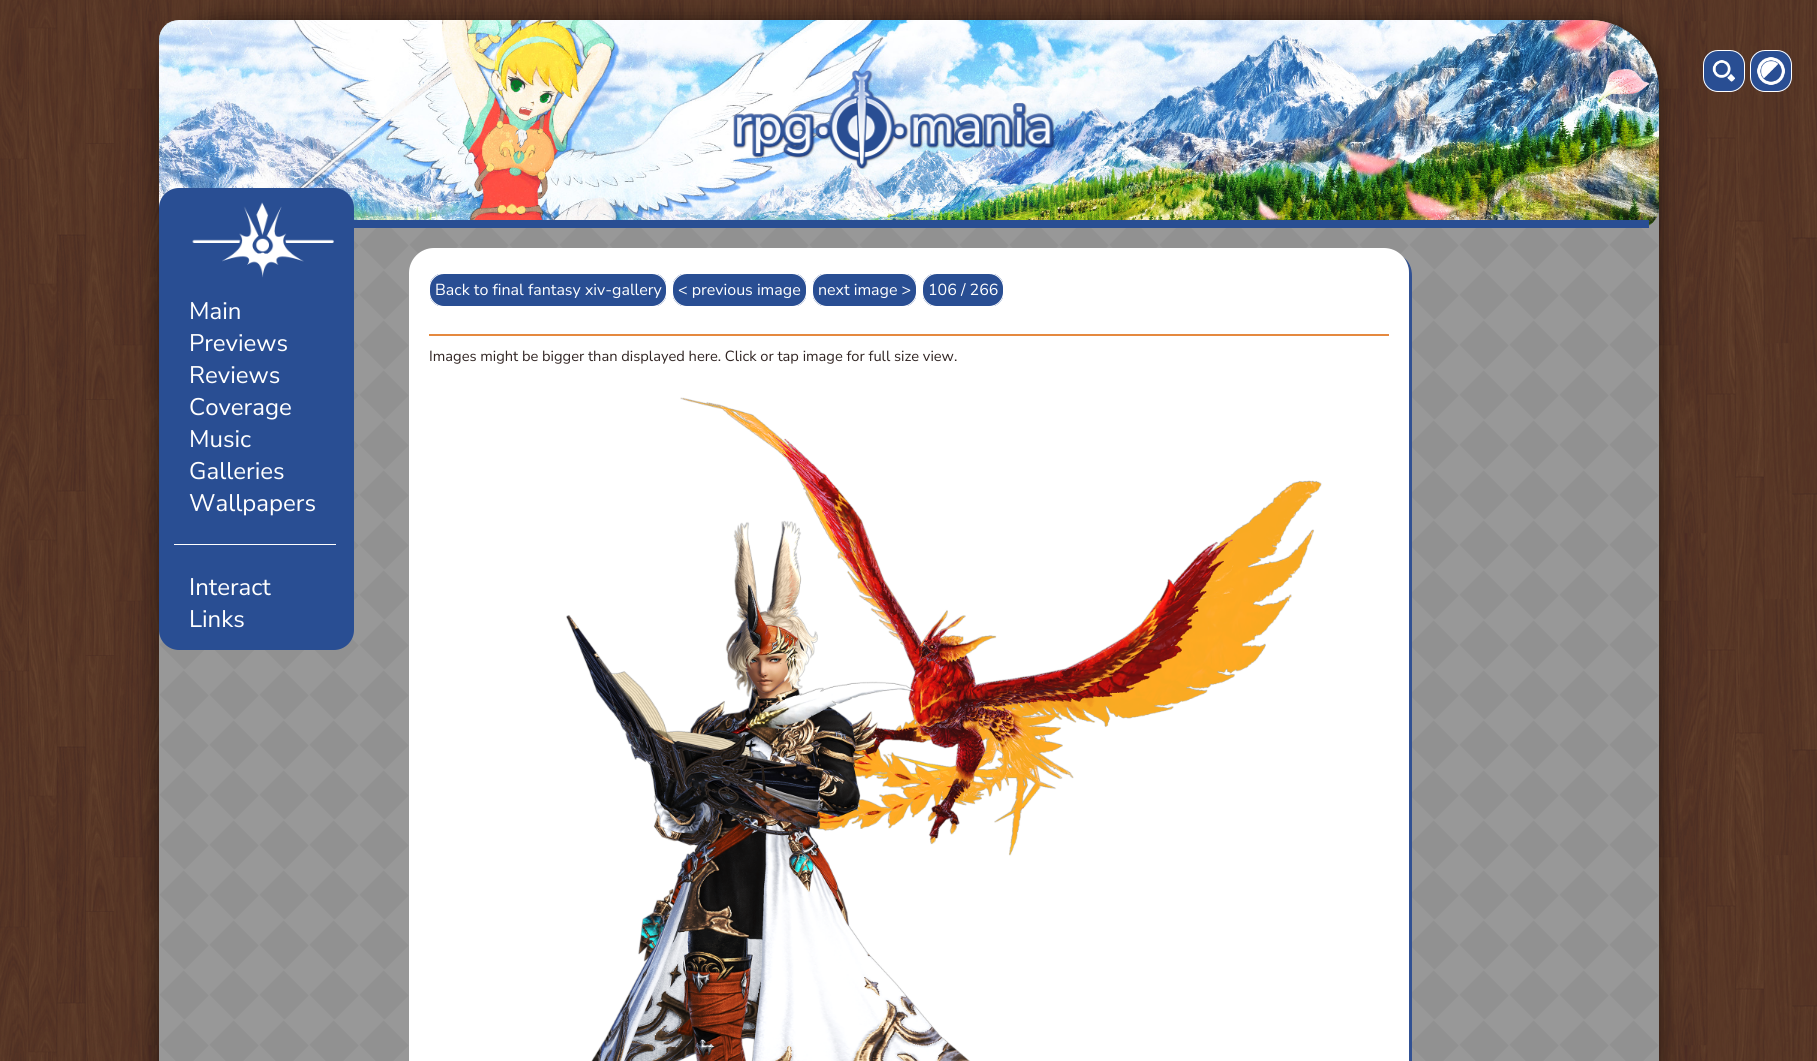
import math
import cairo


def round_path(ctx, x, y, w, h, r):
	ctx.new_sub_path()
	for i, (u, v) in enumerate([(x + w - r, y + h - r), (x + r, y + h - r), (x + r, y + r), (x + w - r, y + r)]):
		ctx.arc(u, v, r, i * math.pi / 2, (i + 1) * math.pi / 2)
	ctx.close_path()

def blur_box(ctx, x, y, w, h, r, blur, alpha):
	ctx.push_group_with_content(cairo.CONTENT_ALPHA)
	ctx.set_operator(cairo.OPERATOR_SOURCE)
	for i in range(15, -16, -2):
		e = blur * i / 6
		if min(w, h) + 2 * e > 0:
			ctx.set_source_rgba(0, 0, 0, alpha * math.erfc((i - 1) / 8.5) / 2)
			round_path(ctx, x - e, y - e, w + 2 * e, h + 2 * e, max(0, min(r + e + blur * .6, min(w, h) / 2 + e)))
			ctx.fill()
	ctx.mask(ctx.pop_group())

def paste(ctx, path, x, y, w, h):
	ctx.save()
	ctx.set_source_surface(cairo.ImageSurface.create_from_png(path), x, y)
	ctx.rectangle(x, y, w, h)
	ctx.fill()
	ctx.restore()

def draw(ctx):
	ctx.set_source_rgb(1, 1, 1)
	ctx.paint()
	paste(ctx, 'media/1.png', 0, 0, 1817, 1061)
	ctx.save()
	round_path(ctx, 1703, 50, 42, 42, 15)
	ctx.clip()
	ctx.set_source_rgb(0.161, 0.306, 0.576)
	ctx.rectangle(1704, 51, 40, 40)
	ctx.fill()
	ctx.restore()
	round_path(ctx, 1703.5, 50.5, 41, 41, 14.5)
	ctx.set_source_rgb(1, 1, 1)
	ctx.set_line_width(1)
	ctx.stroke()
	paste(ctx, 'media/2.png', 1712, 60, 23, 22)
	ctx.save()
	round_path(ctx, 1750, 50, 42, 42, 15)
	ctx.clip()
	ctx.set_source_rgb(0.161, 0.306, 0.576)
	ctx.rectangle(1751, 51, 40, 40)
	ctx.fill()
	ctx.restore()
	round_path(ctx, 1750.5, 50.5, 41, 41, 14.5)
	ctx.stroke()
	paste(ctx, 'media/3.png', 1757, 57, 28, 28)
	ctx.set_source_rgb(0, 0, 0)
	blur_box(ctx, 159, 20, 1500, 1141, 70, 10, 0.5)
	paste(ctx, 'media/4.png', 159, 20, 1500, 1041)
	paste(ctx, 'media/5.png', 159, 20, 1500, 206)
	ctx.set_source_rgb(0.161, 0.306, 0.576)
	ctx.rectangle(354, 220, 1295, 8)
	ctx.fill()
	paste(ctx, 'media/6.png', 733, 70, 322, 99)
	round_path(ctx, 159, 188, 195, 462, 20)
	ctx.fill()
	paste(ctx, 'media/7.png', 192, 202, 142, 76)
	ctx.select_font_face('Nunito Sans')
	ctx.set_font_size(24)
	ctx.set_source_rgb(1, 1, 1)
	for x, y, s in [
		(189, 319, 'Main'),
		(189, 351, 'Previews'),
		(189, 383, 'Reviews'),
		(189, 415, 'Coverage'),
		(189, 447, 'Music'),
		(189, 479, 'Galleries'),
		(189, 511, 'Wallpapers'),
	]:
		ctx.move_to(x, y)
		ctx.show_text(s)
	ctx.rectangle(174, 544, 162, 1)
	ctx.fill()
	ctx.move_to(189, 595)
	ctx.show_text('Interact')
	ctx.move_to(189, 627)
	ctx.show_text('Links')
	ctx.set_source_rgb(0.192, 0.318, 0.576)
	ctx.new_path()
	ctx.move_to(418, 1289)
	ctx.curve_to(422, 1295, 429, 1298, 437, 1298)
	ctx.line_to(1387, 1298)
	ctx.curve_to(1401, 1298, 1412, 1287, 1412, 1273)
	ctx.line_to(1412, 276)
	ctx.curve_to(1412, 268, 1409, 261, 1403, 257)
	ctx.curve_to(1407, 261, 1409, 267, 1409, 273)
	ctx.line_to(1409, 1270)
	ctx.curve_to(1409, 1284, 1398, 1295, 1384, 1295)
	ctx.line_to(434, 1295)
	ctx.curve_to(428, 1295, 422, 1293, 418, 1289)
	ctx.close_path()
	ctx.fill()
	ctx.set_source_rgb(1, 1, 1)
	round_path(ctx, 409, 248, 1000, 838, 25)
	ctx.fill()
	ctx.save()
	round_path(ctx, 429, 273, 238, 34, 15)
	ctx.clip()
	ctx.set_source_rgb(0.161, 0.306, 0.576)
	ctx.rectangle(430, 274, 236, 32)
	ctx.fill()
	ctx.restore()
	round_path(ctx, 429.5, 273.5, 237, 33, 14.5)
	ctx.stroke()
	ctx.set_font_size(16)
	ctx.move_to(435, 295)
	ctx.show_text('Back to final fantasy xiv-gallery')
	ctx.save()
	round_path(ctx, 672, 273, 135, 34, 15)
	ctx.clip()
	ctx.set_source_rgb(0.161, 0.306, 0.576)
	ctx.rectangle(673, 274, 133, 32)
	ctx.fill()
	ctx.restore()
	round_path(ctx, 672.5, 273.5, 134, 33, 14.5)
	ctx.stroke()
	ctx.move_to(678, 295)
	ctx.show_text('< previous image')
	ctx.save()
	round_path(ctx, 812, 273, 105, 34, 15)
	ctx.clip()
	ctx.set_source_rgb(0.161, 0.306, 0.576)
	ctx.rectangle(813, 274, 103, 32)
	ctx.fill()
	ctx.restore()
	round_path(ctx, 812.5, 273.5, 104, 33, 14.5)
	ctx.stroke()
	ctx.move_to(818, 295)
	ctx.show_text('next image >')
	ctx.save()
	round_path(ctx, 922, 273, 82, 34, 15)
	ctx.clip()
	ctx.set_source_rgb(0.161, 0.306, 0.576)
	ctx.rectangle(923, 274, 80, 32)
	ctx.fill()
	ctx.restore()
	round_path(ctx, 922.5, 273.5, 81, 33, 14.5)
	ctx.stroke()
	ctx.move_to(928, 295)
	ctx.show_text('106 / 266')
	ctx.set_source_rgb(0.898, 0.537, 0.247)
	ctx.rectangle(429, 334, 960, 2)
	ctx.fill()
	ctx.set_font_size(14.65)
	ctx.set_source_rgb(0.188, 0.141, 0.133)
	ctx.move_to(429, 361)
	ctx.show_text('Images might be bigger than displayed here. Click or tap image for full size view.')
	paste(ctx, 'media/8.png', 566, 397, 756, 664)


surface = cairo.ImageSurface(cairo.FORMAT_RGB24, 1817, 1061)
ctx = cairo.Context(surface)
options = cairo.FontOptions()
options.set_hint_metrics(cairo.HINT_METRICS_OFF)
options.set_hint_style(cairo.HINT_STYLE_NONE)
ctx.set_font_options(options)
ctx.set_miter_limit(4)
draw(ctx)
surface.write_to_png('image.png')
